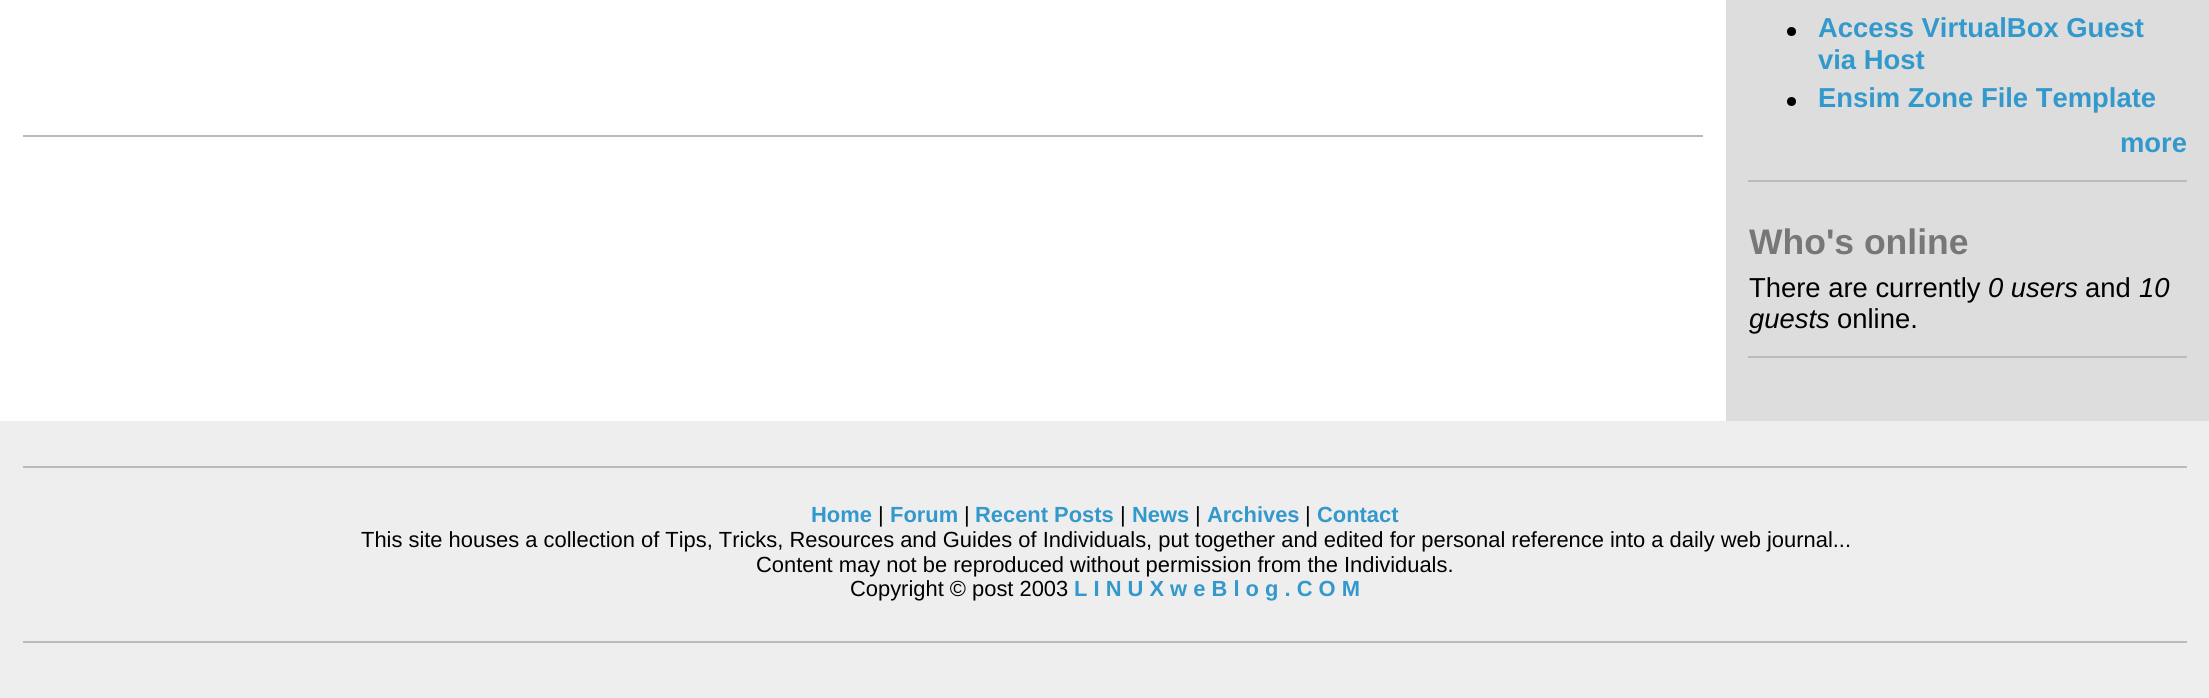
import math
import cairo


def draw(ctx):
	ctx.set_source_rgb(1, 1, 1)
	ctx.paint()
	ctx.set_source_rgb(0.733, 0.733, 0.733)
	ctx.rectangle(23, 135, 1680, 2)
	ctx.fill()
	ctx.set_source_rgb(0.867, 0.867, 0.867)
	ctx.rectangle(1726, 0, 483, 421)
	ctx.fill()
	ctx.set_source_rgb(0.733, 0.733, 0.733)
	ctx.rectangle(1748, 180, 439, 2)
	ctx.fill()
	ctx.set_source_rgb(0, 0, 0)
	ctx.arc(1791.5, 31.5, 4.5, 0, 2 * math.pi)
	ctx.fill()
	ctx.select_font_face('Liberation Sans', cairo.FONT_SLANT_NORMAL, cairo.FONT_WEIGHT_BOLD)
	ctx.set_font_size(27.4)
	ctx.set_source_rgb(0.2, 0.6, 0.8)
	ctx.move_to(1818, 37)
	ctx.show_text('Access VirtualBox Guest')
	ctx.move_to(1818, 69)
	ctx.show_text('via Host')
	ctx.set_source_rgb(0, 0, 0)
	ctx.new_path()
	ctx.arc(1791.5, 101.5, 4.5, 0, 2 * math.pi)
	ctx.fill()
	ctx.set_source_rgb(0.2, 0.6, 0.8)
	ctx.move_to(1818, 107)
	ctx.show_text('Ensim Zone File Template')
	ctx.move_to(2120, 152)
	ctx.show_text('more')
	ctx.set_source_rgb(0.733, 0.733, 0.733)
	ctx.rectangle(1748, 356, 439, 2)
	ctx.fill()
	ctx.set_font_size(35.5)
	ctx.set_source_rgb(0.467, 0.467, 0.467)
	ctx.move_to(1749, 254)
	ctx.show_text('Who\'s online')
	ctx.select_font_face('Liberation Sans')
	ctx.set_font_size(27.4)
	ctx.set_source_rgb(0, 0, 0)
	ctx.move_to(1749, 297)
	ctx.show_text('There are currently')
	ctx.select_font_face('Liberation Sans', cairo.FONT_SLANT_ITALIC)
	ctx.move_to(1988, 297)
	ctx.show_text('0 users')
	ctx.select_font_face('Liberation Sans')
	ctx.move_to(2085, 297)
	ctx.show_text('and')
	ctx.select_font_face('Liberation Sans', cairo.FONT_SLANT_ITALIC)
	ctx.move_to(2139, 297)
	ctx.show_text('10')
	ctx.move_to(1749, 328)
	ctx.show_text('guests')
	ctx.select_font_face('Liberation Sans')
	ctx.move_to(1837, 328)
	ctx.show_text('online.')
	ctx.set_source_rgb(0.933, 0.933, 0.933)
	ctx.rectangle(0, 421, 2209, 277)
	ctx.fill()
	ctx.set_source_rgb(0.733, 0.733, 0.733)
	ctx.rectangle(23, 641, 2164, 2)
	ctx.rectangle(23, 466, 2164, 2)
	ctx.fill()
	ctx.select_font_face('Liberation Sans', cairo.FONT_SLANT_NORMAL, cairo.FONT_WEIGHT_BOLD)
	ctx.set_font_size(21.9)
	ctx.set_source_rgb(0.2, 0.6, 0.8)
	ctx.move_to(811, 522)
	ctx.show_text('Home')
	ctx.select_font_face('Liberation Sans')
	ctx.set_source_rgb(0, 0, 0)
	ctx.move_to(878, 522)
	ctx.show_text('|')
	ctx.select_font_face('Liberation Sans', cairo.FONT_SLANT_NORMAL, cairo.FONT_WEIGHT_BOLD)
	ctx.set_source_rgb(0.2, 0.6, 0.8)
	ctx.move_to(890, 522)
	ctx.show_text('Forum')
	ctx.select_font_face('Liberation Sans')
	ctx.set_source_rgb(0, 0, 0)
	ctx.move_to(964, 522)
	ctx.show_text('|')
	ctx.select_font_face('Liberation Sans', cairo.FONT_SLANT_NORMAL, cairo.FONT_WEIGHT_BOLD)
	ctx.set_source_rgb(0.2, 0.6, 0.8)
	ctx.move_to(975, 522)
	ctx.show_text('Recent Posts')
	ctx.select_font_face('Liberation Sans')
	ctx.set_source_rgb(0, 0, 0)
	ctx.move_to(1120, 522)
	ctx.show_text('|')
	ctx.select_font_face('Liberation Sans', cairo.FONT_SLANT_NORMAL, cairo.FONT_WEIGHT_BOLD)
	ctx.set_source_rgb(0.2, 0.6, 0.8)
	ctx.move_to(1132, 522)
	ctx.show_text('News')
	ctx.select_font_face('Liberation Sans')
	ctx.set_source_rgb(0, 0, 0)
	ctx.move_to(1195, 522)
	ctx.show_text('|')
	ctx.select_font_face('Liberation Sans', cairo.FONT_SLANT_NORMAL, cairo.FONT_WEIGHT_BOLD)
	ctx.set_source_rgb(0.2, 0.6, 0.8)
	ctx.move_to(1207, 522)
	ctx.show_text('Archives')
	ctx.select_font_face('Liberation Sans')
	ctx.set_source_rgb(0, 0, 0)
	ctx.move_to(1305, 522)
	ctx.show_text('|')
	ctx.select_font_face('Liberation Sans', cairo.FONT_SLANT_NORMAL, cairo.FONT_WEIGHT_BOLD)
	ctx.set_source_rgb(0.2, 0.6, 0.8)
	ctx.move_to(1317, 522)
	ctx.show_text('Contact')
	ctx.select_font_face('Liberation Sans')
	ctx.set_source_rgb(0, 0, 0)
	for x, y, s in [
		(361, 547, 'This site houses a collection of Tips, Tricks, Resources and Guides of Individuals, put together and edited for personal reference into a daily web journal...'),
		(756, 572, 'Content may not be reproduced without permission from the Individuals.'),
		(850, 596, 'Copyright © post 2003'),
	]:
		ctx.move_to(x, y)
		ctx.show_text(s)
	ctx.select_font_face('Liberation Sans', cairo.FONT_SLANT_NORMAL, cairo.FONT_WEIGHT_BOLD)
	ctx.set_source_rgb(0.2, 0.6, 0.8)
	ctx.move_to(1074, 596)
	ctx.show_text('L I N U X w e B l o g . C O M')


surface = cairo.ImageSurface(cairo.FORMAT_RGB24, 2209, 698)
ctx = cairo.Context(surface)
options = cairo.FontOptions()
options.set_hint_metrics(cairo.HINT_METRICS_OFF)
options.set_hint_style(cairo.HINT_STYLE_NONE)
ctx.set_font_options(options)
ctx.set_miter_limit(4)
draw(ctx)
surface.write_to_png('image.png')
